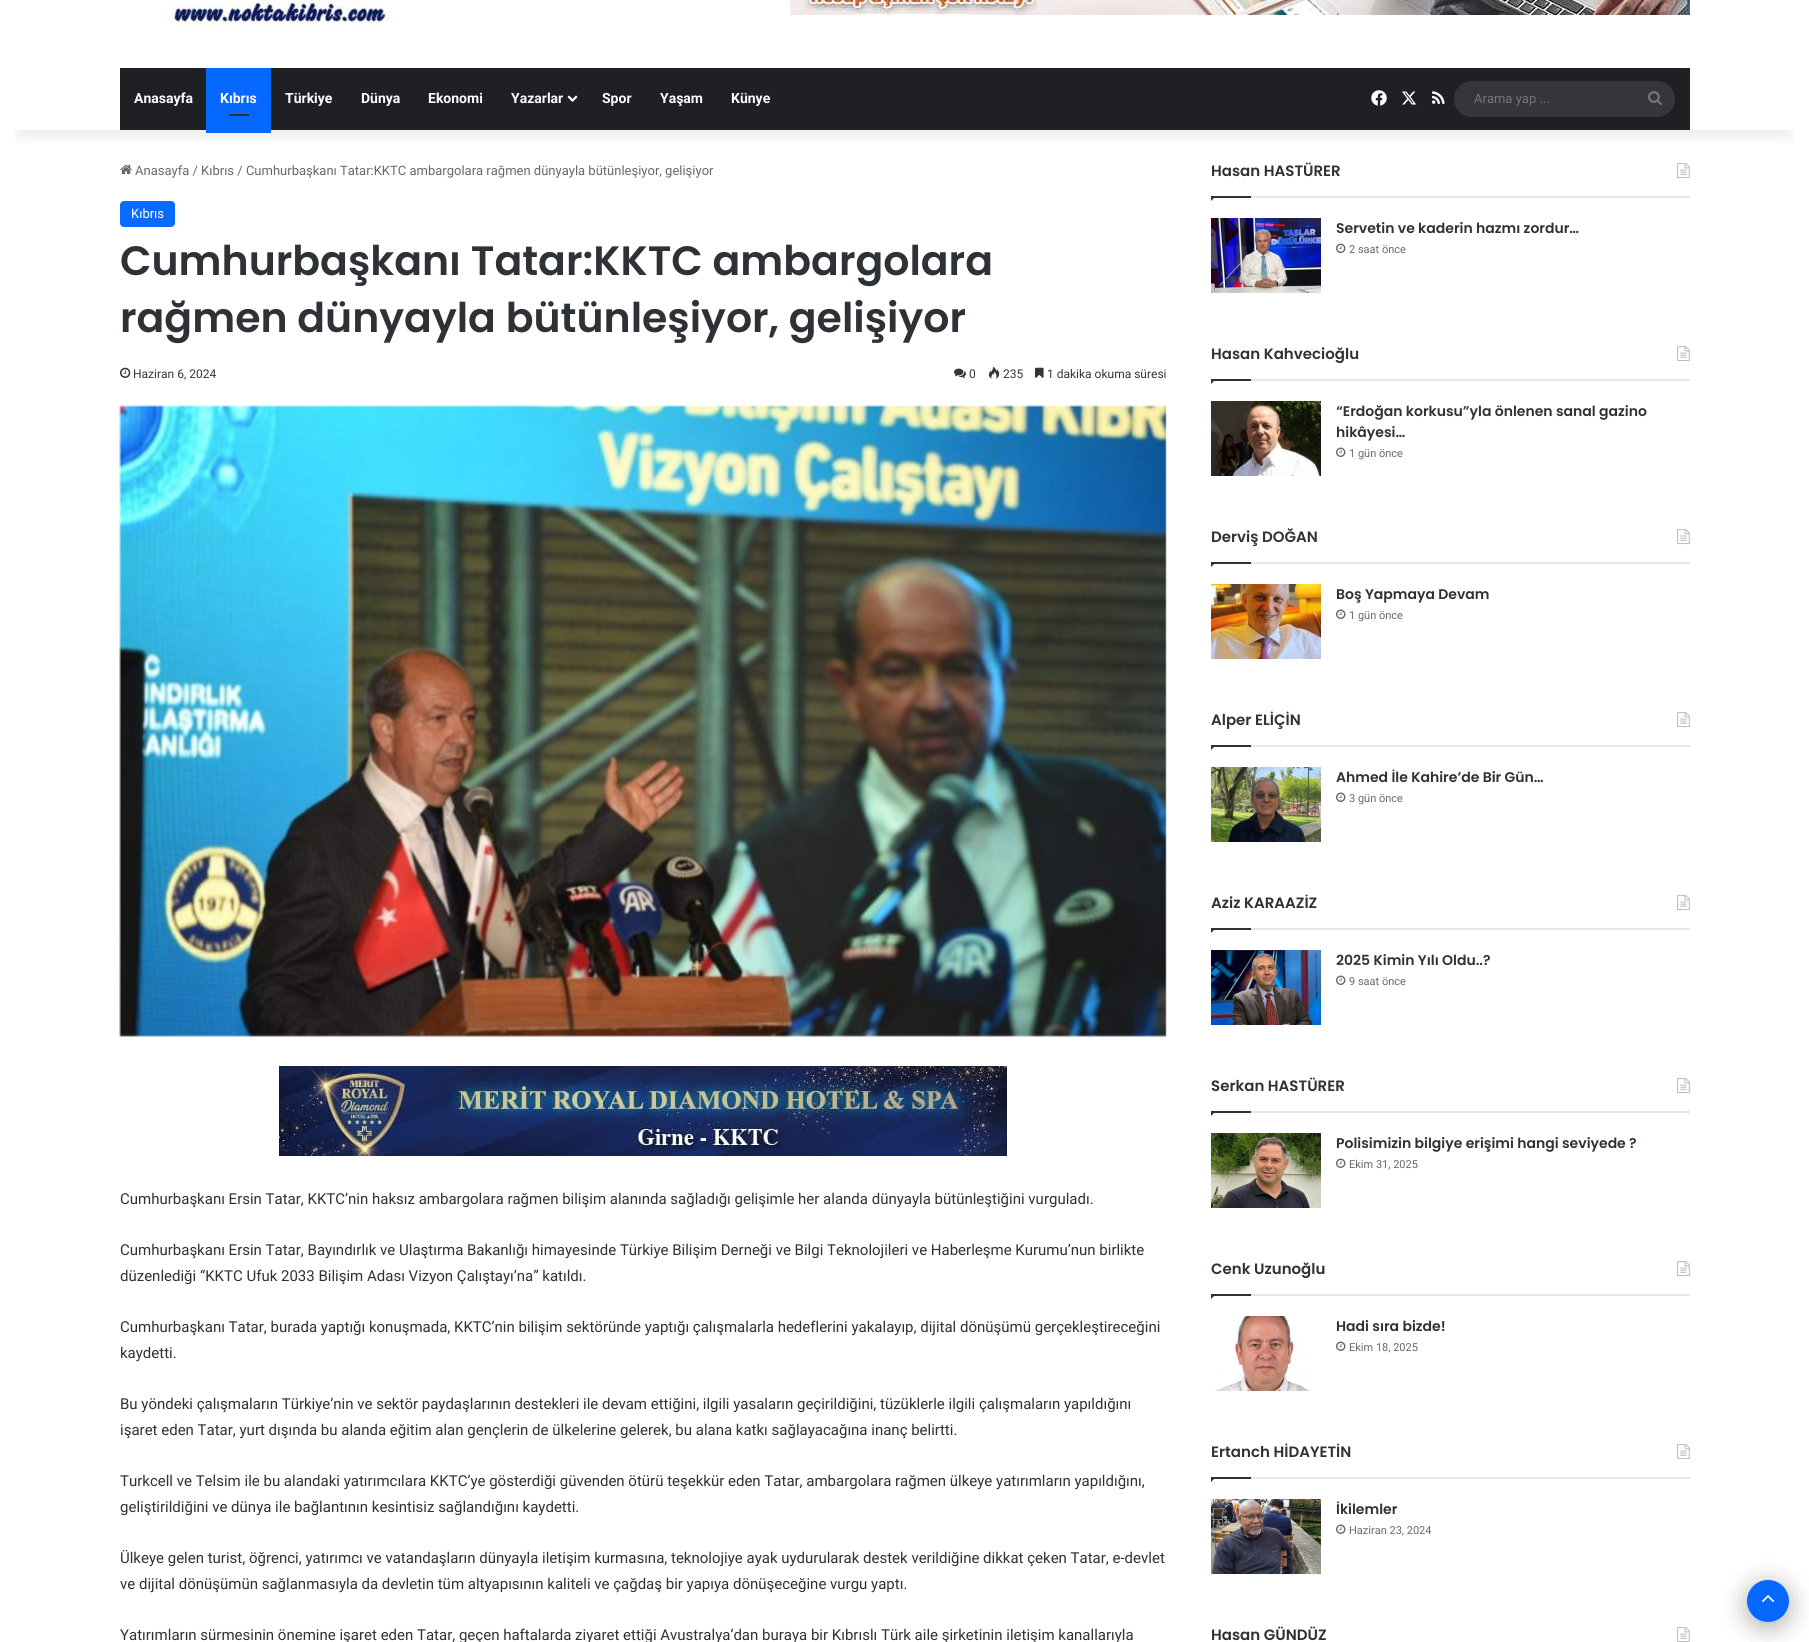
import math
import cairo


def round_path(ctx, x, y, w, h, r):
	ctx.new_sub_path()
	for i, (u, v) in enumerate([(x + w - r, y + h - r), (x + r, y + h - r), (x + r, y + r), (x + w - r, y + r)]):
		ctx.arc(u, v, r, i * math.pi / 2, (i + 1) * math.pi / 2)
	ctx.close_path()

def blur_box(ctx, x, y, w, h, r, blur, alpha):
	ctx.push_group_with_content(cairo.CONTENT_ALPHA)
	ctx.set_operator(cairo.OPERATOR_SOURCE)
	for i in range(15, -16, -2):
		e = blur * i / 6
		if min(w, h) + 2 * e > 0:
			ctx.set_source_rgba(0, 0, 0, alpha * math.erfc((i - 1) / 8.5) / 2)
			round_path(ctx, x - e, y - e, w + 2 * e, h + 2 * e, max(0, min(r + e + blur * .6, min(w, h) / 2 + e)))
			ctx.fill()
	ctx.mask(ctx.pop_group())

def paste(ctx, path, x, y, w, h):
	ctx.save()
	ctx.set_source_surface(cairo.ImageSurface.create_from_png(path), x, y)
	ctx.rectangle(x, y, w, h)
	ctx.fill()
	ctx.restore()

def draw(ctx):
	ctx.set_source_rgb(1, 1, 1)
	ctx.paint()
	paste(ctx, 'media/8.png', 120, 164, 12, 11)
	paste(ctx, 'media/15.png', 1677, 163, 13, 16)
	ctx.save()
	ctx.rectangle(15, 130, 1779, 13)
	ctx.clip()
	ctx.set_source_rgb(0, 0, 0)
	blur_box(ctx, 20, -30, 1769, 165, 0, 10, 0.1)
	ctx.restore()
	paste(ctx, 'media/1.png', 168, 0, 224, 28)
	paste(ctx, 'media/2.png', 790, 0, 900, 15)
	ctx.set_source_rgb(0.122, 0.125, 0.141)
	ctx.rectangle(120, 68, 1570, 62)
	ctx.fill()
	ctx.select_font_face('Roboto', cairo.FONT_SLANT_NORMAL, cairo.FONT_WEIGHT_BOLD)
	ctx.set_font_size(14)
	ctx.set_source_rgb(1, 1, 1)
	ctx.move_to(134, 103)
	ctx.show_text('Anasayfa')
	ctx.set_source_rgb(0.024, 0.412, 1)
	ctx.rectangle(206, 68, 65, 65)
	ctx.fill()
	ctx.set_source_rgb(1, 1, 1)
	ctx.move_to(220, 103)
	ctx.show_text('Kıbrıs')
	ctx.set_source_rgb(0.173, 0.184, 0.204)
	ctx.rectangle(229, 114, 20, 2)
	ctx.fill()
	ctx.set_source_rgb(1, 1, 1)
	for x, y, s in [
		(285, 103, 'Türkiye'),
		(361, 103, 'Dünya'),
		(428, 103, 'Ekonomi'),
		(511, 103, 'Yazarlar'),
	]:
		ctx.move_to(x, y)
		ctx.show_text(s)
	paste(ctx, 'media/3.png', 567, 95, 11, 7)
	for x, y, s in [
		(602, 103, 'Spor'),
		(660, 103, 'Yaşam'),
		(731, 103, 'Künye'),
	]:
		ctx.move_to(x, y)
		ctx.show_text(s)
	paste(ctx, 'media/4.png', 1371, 90, 16, 16)
	paste(ctx, 'media/5.png', 1402, 91, 15, 14)
	paste(ctx, 'media/6.png', 1432, 91, 13, 13)
	ctx.set_source_rgb(0.208, 0.212, 0.227)
	round_path(ctx, 1454, 81, 221, 36, 18)
	ctx.fill()
	ctx.select_font_face('Roboto')
	ctx.set_font_size(13)
	ctx.set_source_rgb(0.459, 0.459, 0.459)
	ctx.move_to(1474, 103)
	ctx.show_text('Arama yap ...')
	paste(ctx, 'media/7.png', 1648, 91, 14, 14)
	ctx.set_source_rgb(0.408, 0.408, 0.408)
	ctx.move_to(135, 175)
	ctx.show_text('Anasayfa / Kıbrıs / Cumhurbaşkanı Tatar:KKTC ambargolara rağmen dünyayla bütünleşiyor, gelişiyor')
	ctx.set_source_rgb(0.031, 0.42, 1)
	round_path(ctx, 120, 201, 55, 26, 4)
	ctx.fill()
	ctx.set_source_rgb(1, 1, 1)
	ctx.move_to(131, 218)
	ctx.show_text('Kıbrıs')
	ctx.select_font_face('Poppins SemiBold')
	ctx.set_font_size(41)
	ctx.set_source_rgb(0.18, 0.192, 0.212)
	ctx.move_to(120, 275)
	ctx.show_text('Cumhurbaşkanı Tatar:KKTC ambargolara')
	ctx.move_to(120, 332)
	ctx.show_text('rağmen dünyayla bütünleşiyor, gelişiyor')
	paste(ctx, 'media/9.png', 120, 367, 11, 11)
	ctx.select_font_face('Roboto')
	ctx.set_font_size(12)
	ctx.set_source_rgb(0.208, 0.208, 0.208)
	ctx.move_to(133, 378)
	ctx.show_text('Haziran 6, 2024')
	paste(ctx, 'media/10.png', 954, 368, 12, 10)
	ctx.move_to(969, 378)
	ctx.show_text('0')
	paste(ctx, 'media/11.png', 988, 366, 12, 13)
	ctx.move_to(1003, 378)
	ctx.show_text('235')
	paste(ctx, 'media/12.png', 1035, 367, 9, 11)
	ctx.move_to(1047, 378)
	ctx.show_text('1 dakika okuma süresi')
	paste(ctx, 'media/13.png', 119, 405, 1048, 632)
	paste(ctx, 'media/14.png', 279, 1066, 728, 90)
	ctx.set_font_size(15)
	ctx.set_source_rgb(0.18, 0.192, 0.212)
	for x, y, s in [
		(120, 1204, 'Cumhurbaşkanı Ersin Tatar, KKTC’nin haksız ambargolara rağmen bilişim alanında sağladığı gelişimle her alanda dünyayla bütünleştiğini vurguladı.'),
		(120, 1255, 'Cumhurbaşkanı Ersin Tatar, Bayındırlık ve Ulaştırma Bakanlığı himayesinde Türkiye Bilişim Derneği ve Bilgi Teknolojileri ve Haberleşme Kurumu’nun birlikte'),
		(120, 1281, 'düzenlediği “KKTC Ufuk 2033 Bilişim Adası Vizyon Çalıştayı’na” katıldı.'),
		(120, 1332, 'Cumhurbaşkanı Tatar, burada yaptığı konuşmada, KKTC’nin bilişim sektöründe yaptığı çalışmalarla hedeflerini yakalayıp, dijital dönüşümü gerçekleştireceğini'),
		(120, 1358, 'kaydetti.'),
		(120, 1409, 'Bu yöndeki çalışmaların Türkiye’nin ve sektör paydaşlarının destekleri ile devam ettiğini, ilgili yasaların geçirildiğini, tüzüklerle ilgili çalışmaların yapıldığını'),
		(120, 1435, 'işaret eden Tatar, yurt dışında bu alanda eğitim alan gençlerin de ülkelerine gelerek, bu alana katkı sağlayacağına inanç belirtti.'),
		(120, 1486, 'Turkcell ve Telsim ile bu alandaki yatırımcılara KKTC’ye gösterdiği güvenden ötürü teşekkür eden Tatar, ambargolara rağmen ülkeye yatırımların yapıldığını,'),
		(120, 1512, 'geliştirildiğini ve dünya ile bağlantının kesintisiz sağlandığını kaydetti.'),
		(120, 1563, 'Ülkeye gelen turist, öğrenci, yatırımcı ve vatandaşların dünyayla iletişim kurmasına, teknolojiye ayak uydurularak destek verildiğine dikkat çeken Tatar, e-devlet'),
		(120, 1589, 've dijital dönüşümün sağlanmasıyla da devletin tüm altyapısının kaliteli ve çağdaş bir yapıya dönüşeceğine vurgu yaptı.'),
		(120, 1640, 'Yatırımların sürmesinin önemine işaret eden Tatar, geçen haftalarda ziyaret ettiği Avustralya’dan buraya bir Kıbrıslı Türk aile şirketinin iletişim kanallarıyla'),
	]:
		ctx.move_to(x, y)
		ctx.show_text(s)
	ctx.set_source_rgb(0.902, 0.902, 0.902)
	ctx.rectangle(1251, 196, 439, 2)
	ctx.fill()
	ctx.select_font_face('Poppins SemiBold')
	ctx.set_source_rgb(0.18, 0.192, 0.212)
	ctx.move_to(1211, 176)
	ctx.show_text('Hasan HASTÜRER')
	ctx.new_path()
	ctx.move_to(1211, 196)
	ctx.line_to(1216, 196)
	ctx.line_to(1211, 201)
	ctx.close_path()
	ctx.fill()
	ctx.rectangle(1211, 196, 40, 2)
	ctx.fill()
	paste(ctx, 'media/16.png', 1211, 218, 110, 75)
	ctx.set_font_size(14)
	ctx.move_to(1336, 233)
	ctx.show_text('Servetin ve kaderin hazmı zordur…')
	paste(ctx, 'media/17.png', 1336, 243, 10, 10)
	ctx.select_font_face('Roboto')
	ctx.set_font_size(11)
	ctx.set_source_rgb(0.408, 0.408, 0.408)
	ctx.move_to(1349, 253)
	ctx.show_text('2 saat önce')
	ctx.set_source_rgb(0.902, 0.902, 0.902)
	ctx.rectangle(1251, 379, 439, 2)
	ctx.fill()
	ctx.select_font_face('Poppins SemiBold')
	ctx.set_font_size(15)
	ctx.set_source_rgb(0.18, 0.192, 0.212)
	ctx.move_to(1211, 359)
	ctx.show_text('Hasan Kahvecioğlu')
	paste(ctx, 'media/15.png', 1677, 346, 13, 16)
	ctx.new_path()
	ctx.move_to(1211, 379)
	ctx.line_to(1216, 379)
	ctx.line_to(1211, 384)
	ctx.close_path()
	ctx.fill()
	ctx.rectangle(1211, 379, 40, 2)
	ctx.fill()
	paste(ctx, 'media/18.png', 1211, 401, 110, 75)
	ctx.set_font_size(14)
	ctx.move_to(1336, 416)
	ctx.show_text('“Erdoğan korkusu”yla önlenen sanal gazino')
	ctx.move_to(1336, 437)
	ctx.show_text('hikâyesi…')
	paste(ctx, 'media/17.png', 1336, 447, 10, 10)
	ctx.select_font_face('Roboto')
	ctx.set_font_size(11)
	ctx.set_source_rgb(0.408, 0.408, 0.408)
	ctx.move_to(1349, 457)
	ctx.show_text('1 gün önce')
	ctx.set_source_rgb(0.902, 0.902, 0.902)
	ctx.rectangle(1251, 562, 439, 2)
	ctx.fill()
	ctx.select_font_face('Poppins SemiBold')
	ctx.set_font_size(15)
	ctx.set_source_rgb(0.18, 0.192, 0.212)
	ctx.move_to(1211, 542)
	ctx.show_text('Derviş DOĞAN')
	paste(ctx, 'media/15.png', 1677, 529, 13, 16)
	ctx.new_path()
	ctx.move_to(1211, 562)
	ctx.line_to(1216, 562)
	ctx.line_to(1211, 567)
	ctx.close_path()
	ctx.fill()
	ctx.rectangle(1211, 562, 40, 2)
	ctx.fill()
	paste(ctx, 'media/19.png', 1211, 584, 110, 75)
	ctx.set_font_size(14)
	ctx.move_to(1336, 599)
	ctx.show_text('Boş Yapmaya Devam')
	paste(ctx, 'media/17.png', 1336, 609, 10, 10)
	ctx.select_font_face('Roboto')
	ctx.set_font_size(11)
	ctx.set_source_rgb(0.408, 0.408, 0.408)
	ctx.move_to(1349, 619)
	ctx.show_text('1 gün önce')
	ctx.set_source_rgb(0.902, 0.902, 0.902)
	ctx.rectangle(1251, 745, 439, 2)
	ctx.fill()
	ctx.select_font_face('Poppins SemiBold')
	ctx.set_font_size(15)
	ctx.set_source_rgb(0.18, 0.192, 0.212)
	ctx.move_to(1211, 725)
	ctx.show_text('Alper ELİÇİN')
	paste(ctx, 'media/15.png', 1677, 712, 13, 16)
	ctx.new_path()
	ctx.move_to(1211, 745)
	ctx.line_to(1216, 745)
	ctx.line_to(1211, 750)
	ctx.close_path()
	ctx.fill()
	ctx.rectangle(1211, 745, 40, 2)
	ctx.fill()
	paste(ctx, 'media/20.png', 1211, 767, 110, 75)
	ctx.set_font_size(14)
	ctx.move_to(1336, 782)
	ctx.show_text('Ahmed İle Kahire’de Bir Gün…')
	paste(ctx, 'media/17.png', 1336, 792, 10, 10)
	ctx.select_font_face('Roboto')
	ctx.set_font_size(11)
	ctx.set_source_rgb(0.408, 0.408, 0.408)
	ctx.move_to(1349, 802)
	ctx.show_text('3 gün önce')
	ctx.set_source_rgb(0.902, 0.902, 0.902)
	ctx.rectangle(1251, 928, 439, 2)
	ctx.fill()
	ctx.select_font_face('Poppins SemiBold')
	ctx.set_font_size(15)
	ctx.set_source_rgb(0.18, 0.192, 0.212)
	ctx.move_to(1211, 908)
	ctx.show_text('Aziz KARAAZİZ')
	paste(ctx, 'media/15.png', 1677, 895, 13, 16)
	ctx.new_path()
	ctx.move_to(1211, 928)
	ctx.line_to(1216, 928)
	ctx.line_to(1211, 933)
	ctx.close_path()
	ctx.fill()
	ctx.rectangle(1211, 928, 40, 2)
	ctx.fill()
	paste(ctx, 'media/21.png', 1211, 950, 110, 75)
	ctx.set_font_size(14)
	ctx.move_to(1336, 965)
	ctx.show_text('2025 Kimin Yılı Oldu..?')
	paste(ctx, 'media/17.png', 1336, 975, 10, 10)
	ctx.select_font_face('Roboto')
	ctx.set_font_size(11)
	ctx.set_source_rgb(0.408, 0.408, 0.408)
	ctx.move_to(1349, 985)
	ctx.show_text('9 saat önce')
	ctx.set_source_rgb(0.902, 0.902, 0.902)
	ctx.rectangle(1251, 1111, 439, 2)
	ctx.fill()
	ctx.select_font_face('Poppins SemiBold')
	ctx.set_font_size(15)
	ctx.set_source_rgb(0.18, 0.192, 0.212)
	ctx.move_to(1211, 1091)
	ctx.show_text('Serkan HASTÜRER')
	paste(ctx, 'media/15.png', 1677, 1078, 13, 16)
	ctx.new_path()
	ctx.move_to(1211, 1111)
	ctx.line_to(1216, 1111)
	ctx.line_to(1211, 1116)
	ctx.close_path()
	ctx.fill()
	ctx.rectangle(1211, 1111, 40, 2)
	ctx.fill()
	paste(ctx, 'media/22.png', 1211, 1133, 110, 75)
	ctx.set_font_size(14)
	ctx.move_to(1336, 1148)
	ctx.show_text('Polisimizin bilgiye erişimi hangi seviyede ?')
	paste(ctx, 'media/17.png', 1336, 1158, 10, 10)
	ctx.select_font_face('Roboto')
	ctx.set_font_size(11)
	ctx.set_source_rgb(0.408, 0.408, 0.408)
	ctx.move_to(1349, 1168)
	ctx.show_text('Ekim 31, 2025')
	ctx.set_source_rgb(0.902, 0.902, 0.902)
	ctx.rectangle(1251, 1294, 439, 2)
	ctx.fill()
	ctx.select_font_face('Poppins SemiBold')
	ctx.set_font_size(15)
	ctx.set_source_rgb(0.18, 0.192, 0.212)
	ctx.move_to(1211, 1274)
	ctx.show_text('Cenk Uzunoğlu')
	paste(ctx, 'media/15.png', 1677, 1261, 13, 16)
	ctx.new_path()
	ctx.move_to(1211, 1294)
	ctx.line_to(1216, 1294)
	ctx.line_to(1211, 1299)
	ctx.close_path()
	ctx.fill()
	ctx.rectangle(1211, 1294, 40, 2)
	ctx.fill()
	paste(ctx, 'media/23.png', 1215, 1316, 96, 75)
	ctx.set_font_size(14)
	ctx.move_to(1336, 1331)
	ctx.show_text('Hadi sıra bizde!')
	paste(ctx, 'media/17.png', 1336, 1341, 10, 10)
	ctx.select_font_face('Roboto')
	ctx.set_font_size(11)
	ctx.set_source_rgb(0.408, 0.408, 0.408)
	ctx.move_to(1349, 1351)
	ctx.show_text('Ekim 18, 2025')
	ctx.set_source_rgb(0.902, 0.902, 0.902)
	ctx.rectangle(1251, 1477, 439, 2)
	ctx.fill()
	ctx.select_font_face('Poppins SemiBold')
	ctx.set_font_size(15)
	ctx.set_source_rgb(0.18, 0.192, 0.212)
	ctx.move_to(1211, 1457)
	ctx.show_text('Ertanch HİDAYETİN')
	paste(ctx, 'media/15.png', 1677, 1444, 13, 16)
	ctx.new_path()
	ctx.move_to(1211, 1477)
	ctx.line_to(1216, 1477)
	ctx.line_to(1211, 1482)
	ctx.close_path()
	ctx.fill()
	ctx.rectangle(1211, 1477, 40, 2)
	ctx.fill()
	paste(ctx, 'media/24.png', 1211, 1499, 110, 75)
	ctx.set_font_size(14)
	ctx.move_to(1336, 1514)
	ctx.show_text('İkilemler')
	paste(ctx, 'media/17.png', 1336, 1524, 10, 10)
	ctx.select_font_face('Roboto')
	ctx.set_font_size(11)
	ctx.set_source_rgb(0.408, 0.408, 0.408)
	ctx.move_to(1349, 1534)
	ctx.show_text('Haziran 23, 2024')
	ctx.select_font_face('Poppins SemiBold')
	ctx.set_font_size(15)
	ctx.set_source_rgb(0.18, 0.192, 0.212)
	ctx.move_to(1211, 1640)
	ctx.show_text('Hasan GÜNDÜZ')
	paste(ctx, 'media/25.png', 1677, 1627, 13, 15)
	ctx.set_source_rgb(0, 0, 0)
	blur_box(ctx, 1747, 1585, 42, 42, 21, 12.5, 0.3)
	ctx.set_source_rgb(0.024, 0.412, 1)
	ctx.arc(1768, 1601, 21, 0, 2 * math.pi)
	ctx.fill()
	paste(ctx, 'media/26.png', 1762, 1595, 13, 8)


surface = cairo.ImageSurface(cairo.FORMAT_RGB24, 1809, 1642)
ctx = cairo.Context(surface)
options = cairo.FontOptions()
options.set_hint_metrics(cairo.HINT_METRICS_OFF)
options.set_hint_style(cairo.HINT_STYLE_NONE)
ctx.set_font_options(options)
ctx.set_miter_limit(4)
draw(ctx)
surface.write_to_png('image.png')
